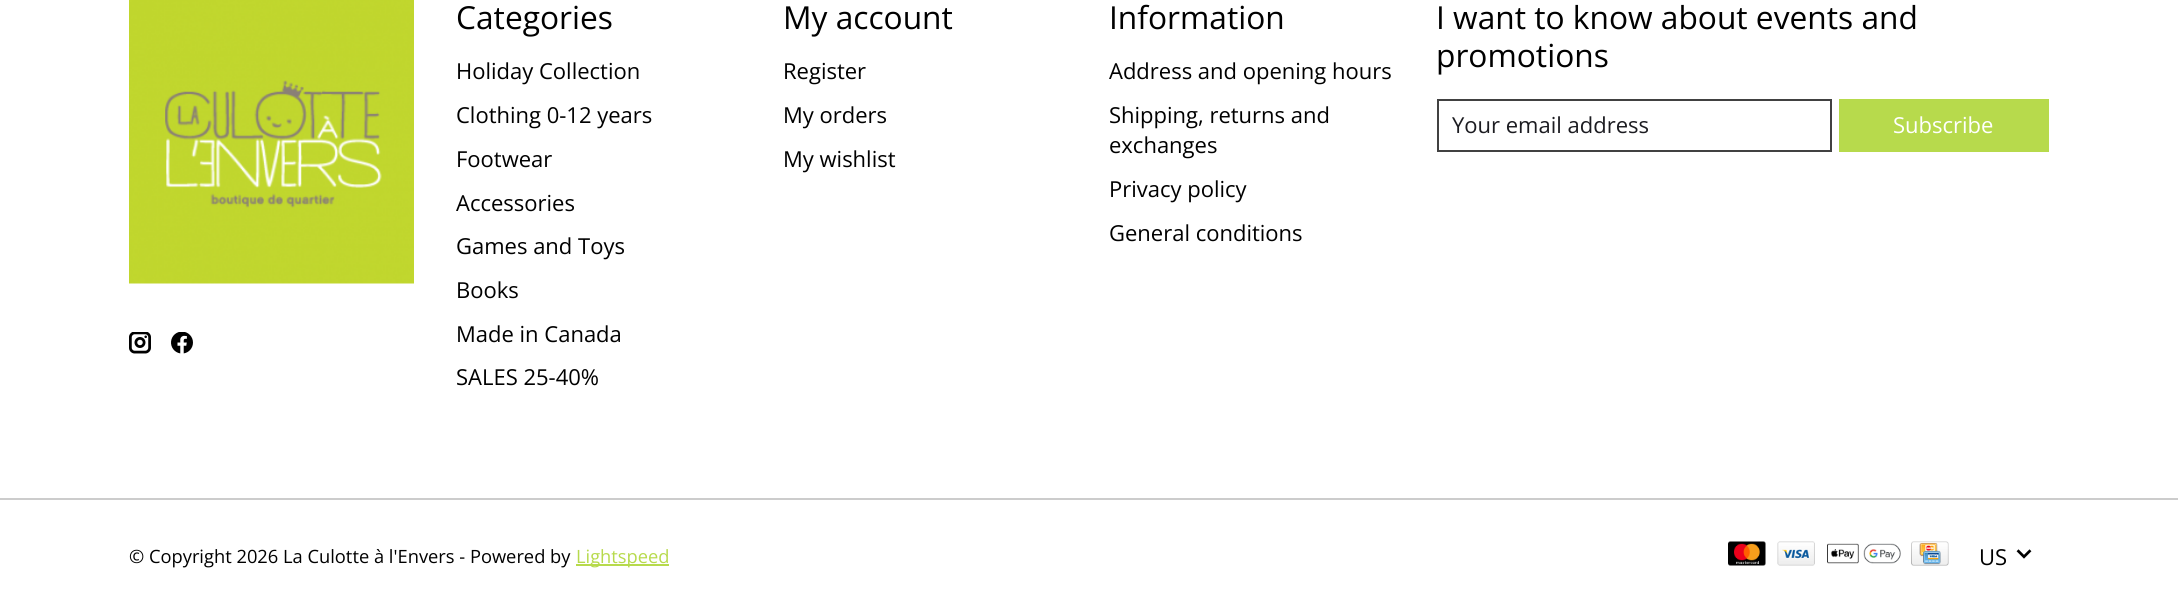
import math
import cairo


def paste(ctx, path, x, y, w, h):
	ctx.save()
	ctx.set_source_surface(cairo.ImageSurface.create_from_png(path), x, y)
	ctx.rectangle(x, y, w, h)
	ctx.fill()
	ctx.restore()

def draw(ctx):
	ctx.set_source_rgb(1, 1, 1)
	ctx.paint()
	paste(ctx, 'media/1.png', 129, 0, 285, 284)
	paste(ctx, 'media/2.png', 129, 332, 22, 22)
	paste(ctx, 'media/3.png', 171, 332, 22, 22)
	ctx.select_font_face('Open Sans')
	ctx.set_font_size(31.7)
	ctx.set_source_rgb(0, 0, 0)
	ctx.move_to(456, 29)
	ctx.show_text('Categories')
	ctx.set_font_size(22)
	for x, y, s in [
		(456, 79, 'Holiday Collection'),
		(456, 123, 'Clothing 0-12 years'),
		(456, 167, 'Footwear'),
		(456, 211, 'Accessories'),
		(456, 254, 'Games and Toys'),
		(456, 298, 'Books'),
		(456, 342, 'Made in Canada'),
		(456, 385, 'SALES 25-40%'),
	]:
		ctx.move_to(x, y)
		ctx.show_text(s)
	ctx.set_font_size(31.7)
	ctx.move_to(783, 29)
	ctx.show_text('My account')
	ctx.set_font_size(22)
	for x, y, s in [
		(783, 79, 'Register'),
		(783, 123, 'My orders'),
		(783, 167, 'My wishlist'),
	]:
		ctx.move_to(x, y)
		ctx.show_text(s)
	ctx.set_font_size(31.7)
	ctx.move_to(1109, 29)
	ctx.show_text('Information')
	ctx.set_font_size(22)
	for x, y, s in [
		(1109, 79, 'Address and opening hours'),
		(1109, 123, 'Shipping, returns and'),
		(1109, 153, 'exchanges'),
		(1109, 197, 'Privacy policy'),
		(1109, 241, 'General conditions'),
	]:
		ctx.move_to(x, y)
		ctx.show_text(s)
	ctx.set_font_size(31.7)
	ctx.move_to(1436, 29)
	ctx.show_text('I want to know about events and')
	ctx.move_to(1436, 67)
	ctx.show_text('promotions')
	ctx.rectangle(1438, 100, 393, 51)
	ctx.set_source_rgb(0.255, 0.255, 0.255)
	ctx.stroke()
	ctx.set_font_size(22)
	ctx.set_source_rgb(0.11, 0.11, 0.129)
	ctx.move_to(1452, 133)
	ctx.show_text('Your email address')
	ctx.set_source_rgb(0.718, 0.855, 0.298)
	ctx.rectangle(1839, 99, 210, 53)
	ctx.fill()
	ctx.set_source_rgb(1, 1, 1)
	ctx.move_to(1893, 133)
	ctx.show_text('Subscribe')
	ctx.set_source_rgb(0.8, 0.8, 0.8)
	ctx.rectangle(0, 498, 2178, 2)
	ctx.fill()
	ctx.set_font_size(18.3)
	ctx.set_source_rgb(0, 0, 0)
	ctx.move_to(129, 563)
	ctx.show_text('© Copyright 2026 La Culotte à l\'Envers - Powered by')
	ctx.set_source_rgb(0.718, 0.855, 0.298)
	ctx.rectangle(576, 564, 93, 2)
	ctx.fill()
	ctx.move_to(576, 563)
	ctx.show_text('Lightspeed')
	paste(ctx, 'media/4.png', 1728, 541, 38, 25)
	paste(ctx, 'media/5.png', 1777, 541, 38, 25)
	paste(ctx, 'media/6.png', 1827, 543, 74, 21)
	paste(ctx, 'media/7.png', 1911, 541, 38, 25)
	ctx.set_font_size(22)
	ctx.set_source_rgb(0, 0, 0)
	ctx.move_to(1979, 565)
	ctx.show_text('US')
	paste(ctx, 'media/8.png', 2016, 549, 16, 10)


surface = cairo.ImageSurface(cairo.FORMAT_RGB24, 2178, 612)
ctx = cairo.Context(surface)
options = cairo.FontOptions()
options.set_hint_metrics(cairo.HINT_METRICS_OFF)
options.set_hint_style(cairo.HINT_STYLE_NONE)
ctx.set_font_options(options)
ctx.set_miter_limit(4)
draw(ctx)
surface.write_to_png('image.png')
